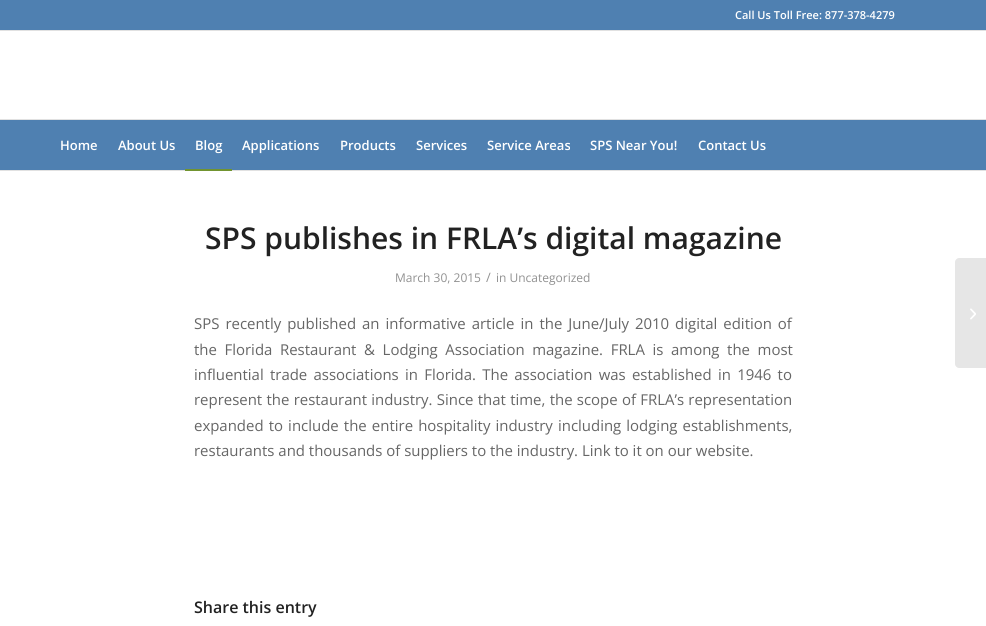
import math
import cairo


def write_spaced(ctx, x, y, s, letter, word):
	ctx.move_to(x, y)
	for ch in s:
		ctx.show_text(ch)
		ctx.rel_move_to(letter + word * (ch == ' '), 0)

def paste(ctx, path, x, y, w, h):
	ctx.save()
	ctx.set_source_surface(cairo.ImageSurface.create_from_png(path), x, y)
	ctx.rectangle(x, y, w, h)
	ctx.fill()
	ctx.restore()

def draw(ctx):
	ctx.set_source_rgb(1, 1, 1)
	ctx.paint()
	ctx.set_source_rgb(0.31, 0.502, 0.694)
	ctx.rectangle(0, 0, 986, 30)
	ctx.fill()
	ctx.set_source_rgb(0.882, 0.882, 0.882)
	ctx.rectangle(0, 30, 986, 1)
	ctx.fill()
	ctx.select_font_face('Open Sans SemiBold')
	ctx.set_font_size(11)
	ctx.set_source_rgb(1, 1, 1)
	ctx.move_to(735, 19)
	ctx.show_text('Call Us Toll Free: 877-378-4279')
	ctx.set_source_rgb(0.882, 0.882, 0.882)
	ctx.rectangle(0, 170, 986, 1)
	ctx.fill()
	ctx.set_source_rgb(0.31, 0.502, 0.694)
	ctx.rectangle(0, 120, 986, 50)
	ctx.fill()
	ctx.set_source_rgb(0.882, 0.882, 0.882)
	ctx.rectangle(0, 119, 986, 1)
	ctx.fill()
	ctx.set_font_size(13)
	ctx.set_source_rgb(1, 1, 1)
	for x, y, s in [
		(60, 150, 'Home'),
		(118, 150, 'About Us'),
		(195, 150, 'Blog'),
	]:
		ctx.move_to(x, y)
		ctx.show_text(s)
	ctx.set_source_rgb(0.443, 0.58, 0.188)
	ctx.rectangle(185, 169, 47, 2)
	ctx.fill()
	ctx.set_source_rgb(1, 1, 1)
	for x, y, s in [
		(242, 150, 'Applications'),
		(340, 150, 'Products'),
		(416, 150, 'Services'),
		(487, 150, 'Service Areas'),
		(590, 150, 'SPS Near You!'),
		(698, 150, 'Contact Us'),
	]:
		ctx.move_to(x, y)
		ctx.show_text(s)
	ctx.set_font_size(30)
	ctx.set_source_rgb(0.133, 0.133, 0.133)
	ctx.move_to(205, 249)
	ctx.show_text('SPS publishes in FRLA’s digital magazine')
	ctx.select_font_face('Open Sans')
	ctx.set_font_size(12)
	ctx.set_source_rgb(0.569, 0.569, 0.569)
	ctx.move_to(395, 282)
	ctx.show_text('March 30, 2015')
	ctx.set_font_size(13)
	ctx.move_to(486, 282)
	ctx.show_text('/')
	ctx.set_font_size(12)
	ctx.move_to(496, 282)
	ctx.show_text('in Uncategorized')
	ctx.set_font_size(14.95)
	ctx.set_source_rgb(0.4, 0.4, 0.4)
	write_spaced(ctx, 194, 329, 'SPS recently published an informative article in the June/July 2010 digital edition of', 0, 2.1)
	write_spaced(ctx, 194, 355, 'the Florida Restaurant & Lodging Association magazine. FRLA is among the most', 0, 3.75)
	write_spaced(ctx, 194, 380, 'influential trade associations in Florida. The association was established in 1946 to', 0, 2.4)
	write_spaced(ctx, 194, 405, 'represent the restaurant industry. Since that time, the scope of FRLA’s representation', 0, 0.4)
	write_spaced(ctx, 194, 431, 'expanded to include the entire hospitality industry including lodging establishments,', 0, 1.25)
	ctx.move_to(194, 456)
	ctx.show_text('restaurants and thousands of suppliers to the industry. Link to it on our website.')
	ctx.select_font_face('Open Sans SemiBold')
	ctx.set_font_size(16)
	ctx.set_source_rgb(0.133, 0.133, 0.133)
	ctx.move_to(194, 613)
	ctx.show_text('Share this entry')
	ctx.set_source_rgb(0.902, 0.902, 0.902)
	ctx.new_path()
	ctx.move_to(959, 258)
	ctx.line_to(986, 258)
	ctx.line_to(986, 368)
	ctx.line_to(959, 368)
	ctx.curve_to(957, 368, 955, 366, 955, 364)
	ctx.line_to(955, 262)
	ctx.curve_to(955, 260, 957, 258, 959, 258)
	ctx.close_path()
	ctx.fill()
	paste(ctx, 'media/1.png', 970, 308, 6, 12)


surface = cairo.ImageSurface(cairo.FORMAT_RGB24, 986, 626)
ctx = cairo.Context(surface)
options = cairo.FontOptions()
options.set_hint_metrics(cairo.HINT_METRICS_OFF)
options.set_hint_style(cairo.HINT_STYLE_NONE)
ctx.set_font_options(options)
ctx.set_miter_limit(4)
draw(ctx)
surface.write_to_png('image.png')
